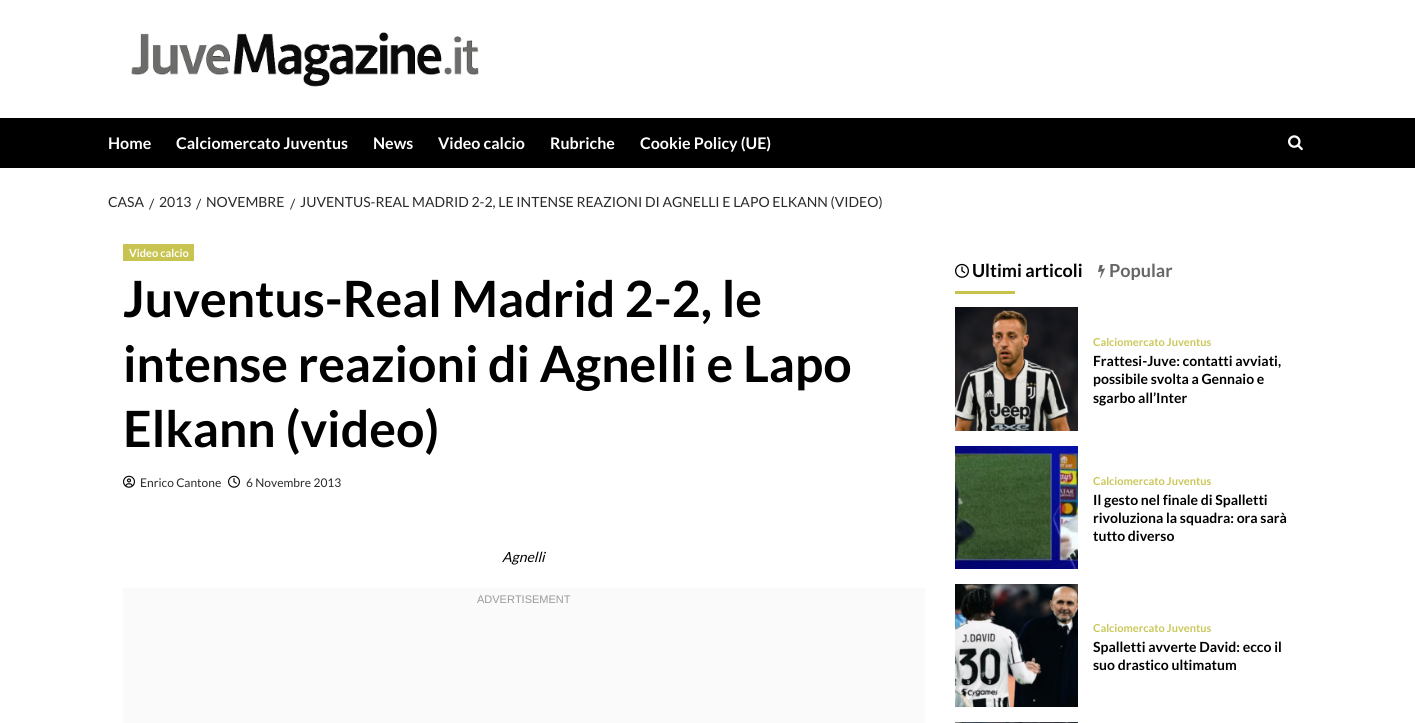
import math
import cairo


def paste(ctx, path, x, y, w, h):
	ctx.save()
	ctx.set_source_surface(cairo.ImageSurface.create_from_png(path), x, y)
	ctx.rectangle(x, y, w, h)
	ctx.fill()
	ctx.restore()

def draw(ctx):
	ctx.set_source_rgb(1, 1, 1)
	ctx.paint()
	paste(ctx, 'media/1.png', 131, 32, 348, 55)
	ctx.set_source_rgb(0, 0, 0)
	ctx.rectangle(0, 118, 1415, 50)
	ctx.fill()
	ctx.select_font_face('Lato', cairo.FONT_SLANT_NORMAL, cairo.FONT_WEIGHT_BOLD)
	ctx.set_font_size(16)
	ctx.set_source_rgb(1, 1, 1)
	for x, y, s in [
		(108, 149, 'Home'),
		(176, 149, 'Calciomercato Juventus'),
		(373, 149, 'News'),
		(438, 149, 'Video calcio'),
		(550, 149, 'Rubriche'),
		(640, 149, 'Cookie Policy (UE)'),
	]:
		ctx.move_to(x, y)
		ctx.show_text(s)
	paste(ctx, 'media/2.png', 1288, 135, 15, 16)
	ctx.select_font_face('Lato')
	ctx.set_font_size(14)
	ctx.set_source_rgb(0.165, 0.165, 0.165)
	for x, y, s in [
		(108, 207, 'CASA'),
		(149, 209, '/'),
		(159, 207, '2013'),
		(196, 209, '/'),
		(206, 207, 'NOVEMBRE'),
		(290, 209, '/'),
		(300, 207, 'JUVENTUS-REAL MADRID 2-2, LE INTENSE REAZIONI DI AGNELLI E LAPO ELKANN (VIDEO)'),
	]:
		ctx.move_to(x, y)
		ctx.show_text(s)
	ctx.set_source_rgb(0.784, 0.769, 0.322)
	ctx.rectangle(123, 244, 71, 17)
	ctx.fill()
	ctx.select_font_face('Lato', cairo.FONT_SLANT_NORMAL, cairo.FONT_WEIGHT_BOLD)
	ctx.set_font_size(11)
	ctx.set_source_rgb(1, 1, 1)
	ctx.move_to(129, 257)
	ctx.show_text('Video calcio')
	ctx.set_font_size(50)
	ctx.set_source_rgb(0, 0, 0)
	for x, y, s in [
		(123, 317, 'Juventus-Real Madrid 2-2, le'),
		(123, 382, 'intense reazioni di Agnelli e Lapo'),
		(123, 447, 'Elkann (video)'),
	]:
		ctx.move_to(x, y)
		ctx.show_text(s)
	paste(ctx, 'media/3.png', 123, 475, 12, 13)
	ctx.select_font_face('Lato')
	ctx.set_font_size(12)
	ctx.set_source_rgb(0.165, 0.165, 0.165)
	ctx.move_to(140, 487)
	ctx.show_text('Enrico Cantone')
	paste(ctx, 'media/4.png', 228, 475, 12, 13)
	ctx.move_to(246, 487)
	ctx.show_text('6 Novembre 2013')
	ctx.select_font_face('Lato', cairo.FONT_SLANT_ITALIC)
	ctx.set_font_size(14)
	ctx.set_source_rgb(0, 0, 0)
	ctx.move_to(502, 562)
	ctx.show_text('Agnelli')
	ctx.set_source_rgb(0.98, 0.98, 0.98)
	ctx.rectangle(123, 588, 802, 135)
	ctx.fill()
	ctx.select_font_face('Liberation Sans')
	ctx.set_font_size(11)
	ctx.set_source_rgb(0.6, 0.6, 0.6)
	ctx.move_to(477, 603)
	ctx.show_text('ADVERTISEMENT')
	paste(ctx, 'media/5.png', 955, 263, 14, 15)
	ctx.select_font_face('Lato', cairo.FONT_SLANT_NORMAL, cairo.FONT_WEIGHT_BOLD)
	ctx.set_font_size(18)
	ctx.set_source_rgb(0, 0, 0)
	ctx.move_to(972, 277)
	ctx.show_text('Ultimi articoli')
	ctx.set_source_rgb(0.776, 0.761, 0.294)
	ctx.rectangle(955, 291, 60, 3)
	ctx.fill()
	paste(ctx, 'media/6.png', 1098, 265, 7, 13)
	ctx.set_source_rgb(0.4, 0.4, 0.4)
	ctx.move_to(1109, 277)
	ctx.show_text('Popular')
	paste(ctx, 'media/7.png', 955, 307, 123, 124)
	ctx.set_font_size(11)
	ctx.set_source_rgb(0.792, 0.78, 0.349)
	ctx.move_to(1093, 346)
	ctx.show_text('Calciomercato Juventus')
	ctx.set_font_size(14)
	ctx.set_source_rgb(0, 0, 0)
	for x, y, s in [
		(1093, 366, 'Frattesi-Juve: contatti avviati,'),
		(1093, 384, 'possibile svolta a Gennaio e'),
		(1093, 403, 'sgarbo all’Inter'),
	]:
		ctx.move_to(x, y)
		ctx.show_text(s)
	paste(ctx, 'media/8.png', 955, 446, 123, 123)
	ctx.set_font_size(11)
	ctx.set_source_rgb(0.792, 0.78, 0.349)
	ctx.move_to(1093, 485)
	ctx.show_text('Calciomercato Juventus')
	ctx.set_font_size(14)
	ctx.set_source_rgb(0, 0, 0)
	for x, y, s in [
		(1093, 505, 'Il gesto nel finale di Spalletti'),
		(1093, 523, 'rivoluziona la squadra: ora sarà'),
		(1093, 541, 'tutto diverso'),
	]:
		ctx.move_to(x, y)
		ctx.show_text(s)
	paste(ctx, 'media/9.png', 955, 584, 123, 123)
	ctx.set_font_size(11)
	ctx.set_source_rgb(0.792, 0.78, 0.349)
	ctx.move_to(1093, 632)
	ctx.show_text('Calciomercato Juventus')
	ctx.set_font_size(14)
	ctx.set_source_rgb(0, 0, 0)
	ctx.move_to(1093, 652)
	ctx.show_text('Spalletti avverte David: ecco il')
	ctx.move_to(1093, 670)
	ctx.show_text('suo drastico ultimatum')
	paste(ctx, 'media/10.png', 955, 722, 123, 1)


surface = cairo.ImageSurface(cairo.FORMAT_RGB24, 1415, 723)
ctx = cairo.Context(surface)
options = cairo.FontOptions()
options.set_hint_metrics(cairo.HINT_METRICS_OFF)
options.set_hint_style(cairo.HINT_STYLE_NONE)
ctx.set_font_options(options)
ctx.set_miter_limit(4)
draw(ctx)
surface.write_to_png('image.png')
